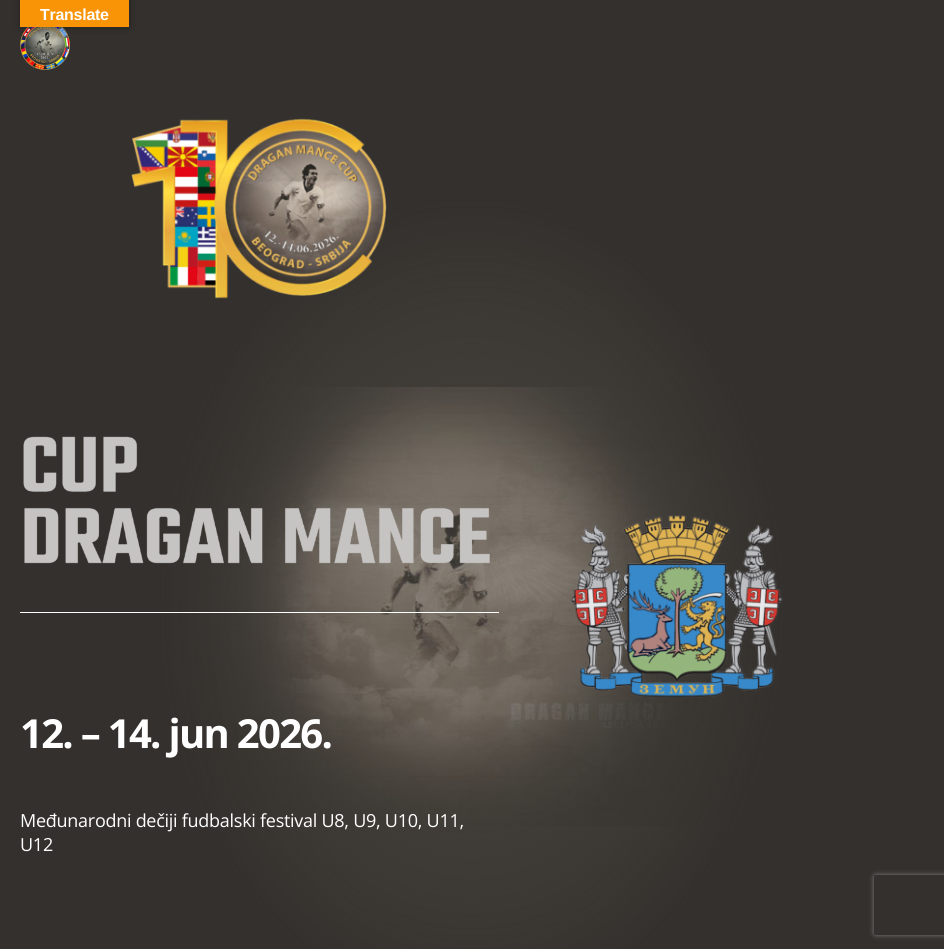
import math
import cairo


def write_spaced(ctx, x, y, s, letter, word):
	ctx.move_to(x, y)
	for ch in s:
		ctx.show_text(ch)
		ctx.rel_move_to(letter + word * (ch == ' '), 0)

def round_path(ctx, x, y, w, h, r):
	ctx.new_sub_path()
	for i, (u, v) in enumerate([(x + w - r, y + h - r), (x + r, y + h - r), (x + r, y + r), (x + w - r, y + r)]):
		ctx.arc(u, v, r, i * math.pi / 2, (i + 1) * math.pi / 2)
	ctx.close_path()

def blur_box(ctx, x, y, w, h, r, blur, alpha):
	ctx.push_group_with_content(cairo.CONTENT_ALPHA)
	ctx.set_operator(cairo.OPERATOR_SOURCE)
	for i in range(15, -16, -2):
		e = blur * i / 6
		if min(w, h) + 2 * e > 0:
			ctx.set_source_rgba(0, 0, 0, alpha * math.erfc((i - 1) / 8.5) / 2)
			round_path(ctx, x - e, y - e, w + 2 * e, h + 2 * e, max(0, min(r + e + blur * .6, min(w, h) / 2 + e)))
			ctx.fill()
	ctx.mask(ctx.pop_group())

def paste(ctx, path, x, y, w, h):
	ctx.save()
	ctx.set_source_surface(cairo.ImageSurface.create_from_png(path), x, y)
	ctx.rectangle(x, y, w, h)
	ctx.fill()
	ctx.restore()

def draw(ctx):
	ctx.set_source_rgb(0.251, 0.235, 0.216)
	ctx.paint()
	paste(ctx, 'media/2.png', 179, 387, 585, 439)
	gradient = cairo.RadialGradient(0, 0, 0, 0, 0, 1)
	gradient.set_matrix(cairo.Matrix(1 / 668, 0, 0, 1 / 869, -1 * 472 / 668, -1 * 607 / 869))
	gradient.add_color_stop_rgba(0.25, 0.251, 0.235, 0.216, 0.56)
	gradient.add_color_stop_rgba(0.47, 0.2, 0.188, 0.176, 1)
	ctx.set_source(gradient)
	ctx.rectangle(0, 0, 944, 949)
	ctx.fill()
	paste(ctx, 'media/1.png', 20, 27, 50, 43)
	ctx.set_source_rgb(0, 0, 0)
	blur_box(ctx, 20, 0, 109, 27, 0, 4.5, 0.3)
	ctx.set_source_rgb(0.973, 0.58, 0.024)
	ctx.rectangle(20, 0, 109, 27)
	ctx.fill()
	ctx.select_font_face('Liberation Sans', cairo.FONT_SLANT_NORMAL, cairo.FONT_WEIGHT_BOLD)
	ctx.set_font_size(16)
	ctx.set_source_rgb(1, 1, 1)
	write_spaced(ctx, 40, 20, 'Translate', -0.27, 0)
	paste(ctx, 'media/3.png', 571, 515, 212, 183)
	paste(ctx, 'media/4.png', 131, 118, 256, 181)
	paste(ctx, 'media/5.png', 23, 436, 467, 128)
	ctx.rectangle(20, 612, 479, 1)
	ctx.fill()
	ctx.select_font_face('Open Sans', cairo.FONT_SLANT_NORMAL, cairo.FONT_WEIGHT_BOLD)
	ctx.set_font_size(40)
	write_spaced(ctx, 20, 748, '12. – 14. jun 2026.', -1.7, 0)
	ctx.select_font_face('Open Sans')
	ctx.set_font_size(18)
	write_spaced(ctx, 20, 827, 'Međunarodni dečiji fudbalski festival U8, U9, U10, U11,', -0.27, 0)
	write_spaced(ctx, 20, 851, 'U12', -0.27, 0)
	ctx.save()
	ctx.set_fill_rule(cairo.FILL_RULE_EVEN_ODD)
	ctx.new_path()
	ctx.move_to(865, 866)
	ctx.line_to(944, 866)
	ctx.line_to(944, 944)
	ctx.line_to(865, 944)
	ctx.close_path()
	ctx.move_to(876, 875)
	ctx.line_to(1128, 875)
	ctx.curve_to(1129, 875, 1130, 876, 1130, 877)
	ctx.line_to(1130, 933)
	ctx.curve_to(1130, 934, 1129, 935, 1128, 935)
	ctx.line_to(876, 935)
	ctx.curve_to(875, 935, 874, 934, 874, 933)
	ctx.line_to(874, 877)
	ctx.curve_to(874, 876, 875, 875, 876, 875)
	ctx.close_path()
	ctx.clip()
	ctx.set_source_rgb(0.502, 0.502, 0.502)
	blur_box(ctx, 874, 875, 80, 60, 2, 2.5, 1)
	ctx.restore()


surface = cairo.ImageSurface(cairo.FORMAT_RGB24, 944, 949)
ctx = cairo.Context(surface)
options = cairo.FontOptions()
options.set_hint_metrics(cairo.HINT_METRICS_OFF)
options.set_hint_style(cairo.HINT_STYLE_NONE)
ctx.set_font_options(options)
ctx.set_miter_limit(4)
draw(ctx)
surface.write_to_png('image.png')
